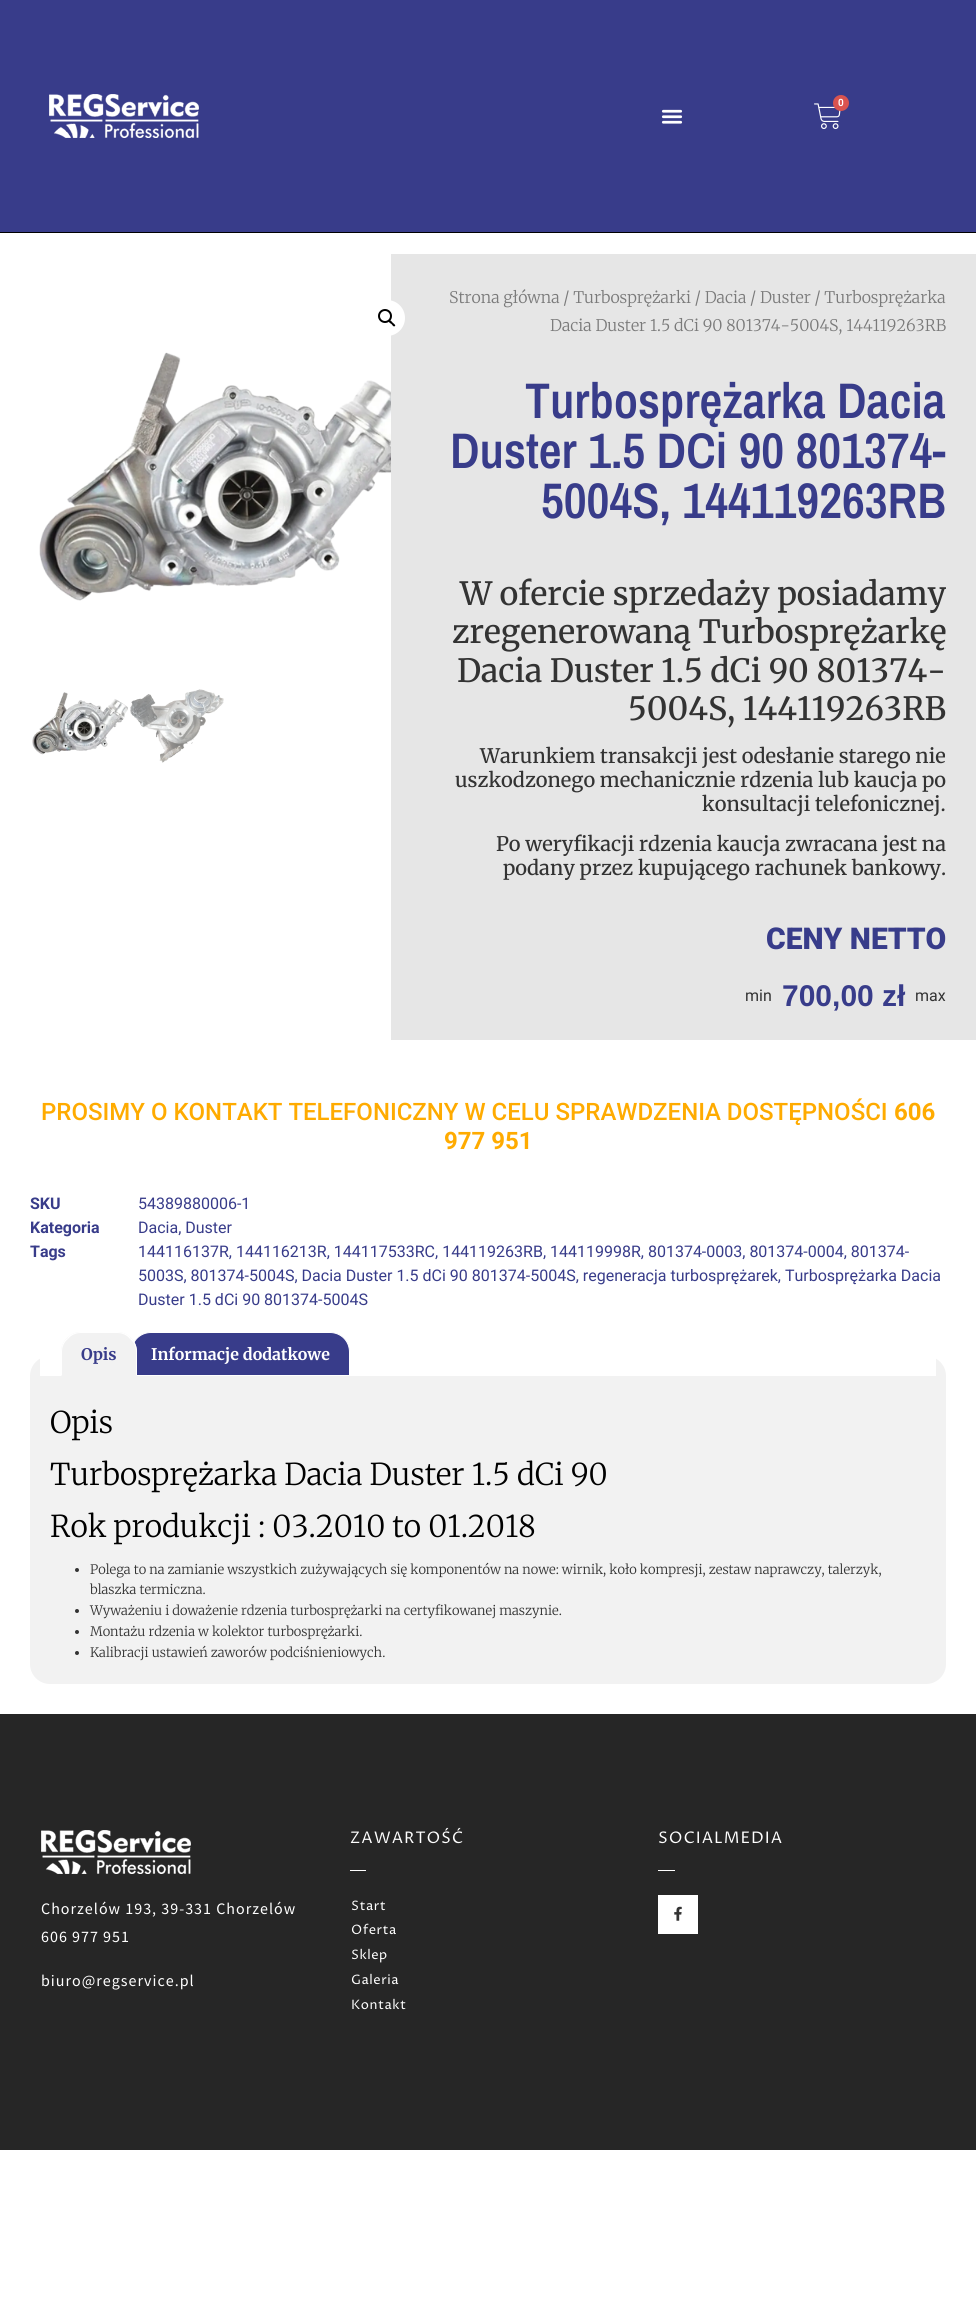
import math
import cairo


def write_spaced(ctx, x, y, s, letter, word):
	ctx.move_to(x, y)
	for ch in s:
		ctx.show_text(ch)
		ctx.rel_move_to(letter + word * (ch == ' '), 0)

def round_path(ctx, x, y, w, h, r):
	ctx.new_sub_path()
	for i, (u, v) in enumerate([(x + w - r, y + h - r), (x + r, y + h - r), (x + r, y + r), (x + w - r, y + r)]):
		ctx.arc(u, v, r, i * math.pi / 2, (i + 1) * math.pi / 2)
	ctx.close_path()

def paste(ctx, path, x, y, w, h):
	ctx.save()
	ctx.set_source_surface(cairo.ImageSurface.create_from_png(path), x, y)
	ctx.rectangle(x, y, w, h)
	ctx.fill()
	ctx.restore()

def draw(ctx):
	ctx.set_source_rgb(1, 1, 1)
	ctx.paint()
	ctx.set_source_rgb(0.22, 0.235, 0.541)
	ctx.rectangle(0, 0, 976, 232)
	ctx.fill()
	ctx.set_source_rgb(0, 0, 0)
	ctx.rectangle(0, 232, 976, 1)
	ctx.fill()
	paste(ctx, 'media/1.png', 49, 94, 150, 44)
	paste(ctx, 'media/2.png', 814, 103, 27, 26)
	ctx.set_source_rgb(0.851, 0.325, 0.31)
	ctx.arc(841, 103, 8, 0, 2 * math.pi)
	ctx.fill()
	ctx.select_font_face('Roboto SemiBold')
	ctx.set_font_size(10)
	ctx.set_source_rgb(1, 1, 1)
	ctx.move_to(838, 106)
	ctx.show_text('0')
	paste(ctx, 'media/3.png', 661, 109, 22, 15)
	ctx.set_source_rgb(0.902, 0.902, 0.902)
	ctx.rectangle(391, 254, 585, 786)
	ctx.fill()
	ctx.set_source_rgb(1, 1, 1)
	ctx.arc(387, 318, 18, 0, 2 * math.pi)
	ctx.fill()
	ctx.arc(385, 316, 6, 0, 2 * math.pi)
	ctx.set_source_rgb(0, 0, 0)
	ctx.stroke()
	ctx.new_path()
	ctx.move_to(389, 320.5)
	ctx.curve_to(390.5, 319.5, 392, 322, 392.5, 322.5)
	ctx.curve_to(393.5, 323.5, 396, 325, 395, 326)
	ctx.curve_to(393.5, 327.5, 392, 324.5, 391.5, 324)
	ctx.curve_to(390.5, 323.5, 388, 322, 389, 320.5)
	ctx.close_path()
	ctx.fill()
	paste(ctx, 'media/4.png', 39, 352, 352, 249)
	paste(ctx, 'media/5.png', 32, 692, 96, 63)
	paste(ctx, 'media/6.png', 130, 689, 94, 74)
	ctx.select_font_face('Merriweather Light')
	ctx.set_font_size(16)
	ctx.set_source_rgb(0.478, 0.478, 0.478)
	ctx.move_to(449, 303)
	ctx.show_text('Strona główna / Turbosprężarki / Dacia / Duster / Turbosprężarka')
	ctx.move_to(550, 331)
	ctx.show_text('Dacia Duster 1.5 dCi 90 801374-5004S, 144119263RB')
	ctx.select_font_face('Archivo Narrow SemiBold')
	ctx.set_font_size(50)
	ctx.set_source_rgb(0.22, 0.235, 0.541)
	for x, y, s in [
		(525, 418, 'Turbosprężarka Dacia'),
		(450, 468, 'Duster 1.5 DCi 90 801374-'),
		(541, 518, '5004S, 144119263RB'),
	]:
		ctx.move_to(x, y)
		ctx.show_text(s)
	ctx.select_font_face('Merriweather Medium')
	ctx.set_font_size(32)
	ctx.set_source_rgb(0.2, 0.2, 0.2)
	for x, y, s in [
		(460, 605, 'W ofercie sprzedaży posiadamy'),
		(452, 643, 'zregenerowaną Turbosprężarkę'),
		(457, 682, 'Dacia Duster 1.5 dCi 90 801374-'),
		(628, 720, '5004S, 144119263RB'),
	]:
		ctx.move_to(x, y)
		ctx.show_text(s)
	ctx.set_font_size(20)
	for x, y, s in [
		(480, 763, 'Warunkiem transakcji jest odesłanie starego nie'),
		(455, 787, 'uszkodzonego mechanicznie rdzenia lub kaucja po'),
		(702, 811, 'konsultacji telefonicznej.'),
		(496, 851, 'Po weryfikacji rdzenia kaucja zwracana jest na'),
		(503, 875, 'podany przez kupującego rachunek bankowy.'),
	]:
		ctx.move_to(x, y)
		ctx.show_text(s)
	ctx.select_font_face('Roboto Black')
	ctx.set_font_size(30)
	ctx.set_source_rgb(0.22, 0.235, 0.541)
	ctx.move_to(766, 949)
	ctx.show_text('CENY NETTO')
	ctx.select_font_face('Roboto')
	ctx.set_font_size(16)
	ctx.set_source_rgb(0.2, 0.2, 0.2)
	ctx.move_to(745, 1001)
	ctx.show_text('min')
	ctx.select_font_face('Liberation Sans', cairo.FONT_SLANT_NORMAL, cairo.FONT_WEIGHT_BOLD)
	ctx.set_font_size(30)
	ctx.set_source_rgb(0.22, 0.235, 0.541)
	ctx.move_to(782, 1006)
	ctx.show_text('700,00 zł')
	ctx.select_font_face('Roboto')
	ctx.set_font_size(16)
	ctx.set_source_rgb(0.2, 0.2, 0.2)
	ctx.move_to(915, 1001)
	ctx.show_text('max')
	ctx.select_font_face('Roboto Medium')
	ctx.set_font_size(24)
	ctx.set_source_rgb(1, 0.671, 0)
	ctx.move_to(41, 1120)
	ctx.show_text('PROSIMY O KONTAKT TELEFONICZNY W CELU SPRAWDZENIA DOSTĘPNOŚCI')
	ctx.select_font_face('Roboto', cairo.FONT_SLANT_NORMAL, cairo.FONT_WEIGHT_BOLD)
	ctx.move_to(894, 1120)
	ctx.show_text('606')
	ctx.move_to(444, 1149)
	ctx.show_text('977 951')
	ctx.set_font_size(16)
	ctx.set_source_rgb(0.22, 0.235, 0.541)
	ctx.move_to(30, 1209)
	ctx.show_text('SKU')
	ctx.select_font_face('Roboto')
	ctx.move_to(138, 1209)
	ctx.show_text('54389880006-1')
	ctx.select_font_face('Roboto', cairo.FONT_SLANT_NORMAL, cairo.FONT_WEIGHT_BOLD)
	ctx.move_to(30, 1233)
	ctx.show_text('Kategoria')
	ctx.select_font_face('Roboto')
	ctx.move_to(138, 1233)
	ctx.show_text('Dacia, Duster')
	ctx.select_font_face('Roboto', cairo.FONT_SLANT_NORMAL, cairo.FONT_WEIGHT_BOLD)
	ctx.move_to(30, 1257)
	ctx.show_text('Tags')
	ctx.select_font_face('Roboto')
	for x, y, s in [
		(138, 1257, '144116137R, 144116213R, 144117533RC, 144119263RB, 144119998R, 801374-0003, 801374-0004, 801374-'),
		(138, 1281, '5003S, 801374-5004S, Dacia Duster 1.5 dCi 90 801374-5004S, regeneracja turbosprężarek, Turbosprężarka Dacia'),
		(138, 1305, 'Duster 1.5 dCi 90 801374-5004S'),
	]:
		ctx.move_to(x, y)
		ctx.show_text(s)
	ctx.set_source_rgb(0.949, 0.949, 0.949)
	round_path(ctx, 30, 1356, 916, 328, 20)
	ctx.fill()
	ctx.set_source_rgb(1, 1, 1)
	ctx.rectangle(40, 1356, 896, 20)
	ctx.fill()
	ctx.set_source_rgb(0.22, 0.235, 0.541)
	ctx.new_path()
	ctx.move_to(151, 1332.5)
	ctx.line_to(330, 1332.5)
	ctx.curve_to(341, 1332.5, 349.5, 1341, 349.5, 1352)
	ctx.line_to(349.5, 1375.5)
	ctx.line_to(131.5, 1375.5)
	ctx.line_to(131.5, 1352)
	ctx.curve_to(131.5, 1341, 140, 1332.5, 151, 1332.5)
	ctx.close_path()
	ctx.fill_preserve()
	ctx.set_source_rgb(1, 1, 1)
	ctx.set_line_width(1)
	ctx.stroke()
	ctx.set_source_rgb(0.949, 0.949, 0.949)
	ctx.new_path()
	ctx.move_to(81, 1332)
	ctx.line_to(117, 1332)
	ctx.curve_to(128, 1332, 137, 1341, 137, 1352)
	ctx.line_to(137, 1376)
	ctx.line_to(61, 1376)
	ctx.line_to(61, 1352)
	ctx.curve_to(61, 1341, 70, 1332, 81, 1332)
	ctx.close_path()
	ctx.fill()
	ctx.set_source_rgb(1, 1, 1)
	ctx.new_path()
	ctx.move_to(81, 1332)
	ctx.curve_to(76, 1332, 70, 1334, 67, 1338)
	ctx.line_to(68, 1339)
	ctx.curve_to(71, 1335, 76, 1333, 81, 1333)
	ctx.line_to(117, 1333)
	ctx.curve_to(122, 1333, 127, 1335, 130, 1339)
	ctx.line_to(131, 1338)
	ctx.curve_to(128, 1334, 122, 1332, 117, 1332)
	ctx.close_path()
	ctx.fill()
	ctx.new_path()
	ctx.move_to(137, 1376)
	ctx.line_to(137, 1352)
	ctx.curve_to(137, 1346.5, 135, 1341.5, 131, 1338)
	ctx.line_to(130, 1339)
	ctx.curve_to(134, 1342, 136, 1347, 136, 1352)
	ctx.line_to(136, 1375)
	ctx.close_path()
	ctx.fill()
	ctx.set_source_rgb(0.949, 0.949, 0.949)
	ctx.new_path()
	ctx.move_to(137, 1376)
	ctx.line_to(136, 1375)
	ctx.line_to(62, 1375)
	ctx.line_to(61, 1376)
	ctx.close_path()
	ctx.fill()
	ctx.set_source_rgb(1, 1, 1)
	ctx.new_path()
	ctx.move_to(61, 1376)
	ctx.line_to(62, 1375)
	ctx.line_to(62, 1352)
	ctx.curve_to(62, 1347, 64, 1342, 68, 1339)
	ctx.line_to(67, 1338)
	ctx.curve_to(63, 1341.5, 61, 1346.5, 61, 1352)
	ctx.close_path()
	ctx.fill()
	ctx.select_font_face('Merriweather', cairo.FONT_SLANT_NORMAL, cairo.FONT_WEIGHT_BOLD)
	ctx.set_source_rgb(0.22, 0.235, 0.541)
	ctx.move_to(81, 1360)
	ctx.show_text('Opis')
	ctx.set_source_rgb(1, 1, 1)
	ctx.move_to(151, 1360)
	ctx.show_text('Informacje dodatkowe')
	ctx.select_font_face('Merriweather Light')
	ctx.set_font_size(30)
	ctx.set_source_rgb(0, 0, 0)
	for x, y, s in [
		(50, 1433, 'Opis'),
		(50, 1485, 'Turbosprężarka Dacia Duster 1.5 dCi 90'),
		(50, 1537, 'Rok produkcji : 03.2010 to 01.2018'),
	]:
		ctx.move_to(x, y)
		ctx.show_text(s)
	ctx.set_source_rgb(0.2, 0.2, 0.2)
	ctx.new_path()
	ctx.arc(77, 1570, 2, 0, 2 * math.pi)
	ctx.fill()
	ctx.set_font_size(13)
	ctx.move_to(90, 1574)
	ctx.show_text('Polega to na zamianie wszystkich zużywających się komponentów na nowe: wirnik, koło kompresji, zestaw naprawczy, talerzyk,')
	ctx.move_to(90, 1594)
	ctx.show_text('blaszka termiczna.')
	ctx.new_path()
	ctx.arc(77, 1611, 2, 0, 2 * math.pi)
	ctx.fill()
	ctx.move_to(90, 1615)
	ctx.show_text('Wyważeniu i doważenie rdzenia turbosprężarki na certyfikowanej maszynie.')
	ctx.new_path()
	ctx.arc(77, 1632, 2, 0, 2 * math.pi)
	ctx.fill()
	ctx.move_to(90, 1636)
	ctx.show_text('Montażu rdzenia w kolektor turbosprężarki.')
	ctx.new_path()
	ctx.arc(77, 1653, 2, 0, 2 * math.pi)
	ctx.fill()
	ctx.move_to(90, 1657)
	ctx.show_text('Kalibracji ustawień zaworów podciśnieniowych.')
	ctx.set_source_rgb(0.149, 0.149, 0.149)
	ctx.rectangle(0, 1714, 976, 436)
	ctx.fill()
	ctx.select_font_face('Proza Libre')
	ctx.set_font_size(16)
	ctx.set_source_rgb(1, 1, 1)
	write_spaced(ctx, 350, 1843, 'ZAWARTOŚĆ', 1, 0)
	ctx.rectangle(350, 1870, 16, 1)
	ctx.fill()
	ctx.set_font_size(13)
	for x, y, s in [
		(351, 1910, 'Start'),
		(351, 1934, 'Oferta'),
		(351, 1959, 'Sklep'),
		(351, 1984, 'Galeria'),
		(351, 2009, 'Kontakt'),
	]:
		write_spaced(ctx, x, y, s, 0.5, 0)
	ctx.set_font_size(16)
	write_spaced(ctx, 658, 1843, 'SOCIALMEDIA', 1, 0)
	ctx.rectangle(658, 1870, 17, 1)
	ctx.fill()
	ctx.rectangle(658, 1895, 40, 39)
	ctx.fill()
	paste(ctx, 'media/7.png', 674, 1906, 8, 15)
	paste(ctx, 'media/8.png', 41, 1830, 150, 44)
	ctx.select_font_face('Source Sans Pro')
	for x, y, s in [
		(41, 1914, 'Chorzelów 193, 39-331 Chorzelów'),
		(41, 1942, '606 977 951'),
		(41, 1986, 'biuro@regservice.pl'),
	]:
		write_spaced(ctx, x, y, s, 1, 0)


surface = cairo.ImageSurface(cairo.FORMAT_RGB24, 976, 2324)
ctx = cairo.Context(surface)
options = cairo.FontOptions()
options.set_hint_metrics(cairo.HINT_METRICS_OFF)
options.set_hint_style(cairo.HINT_STYLE_NONE)
ctx.set_font_options(options)
ctx.set_miter_limit(4)
draw(ctx)
surface.write_to_png('image.png')
